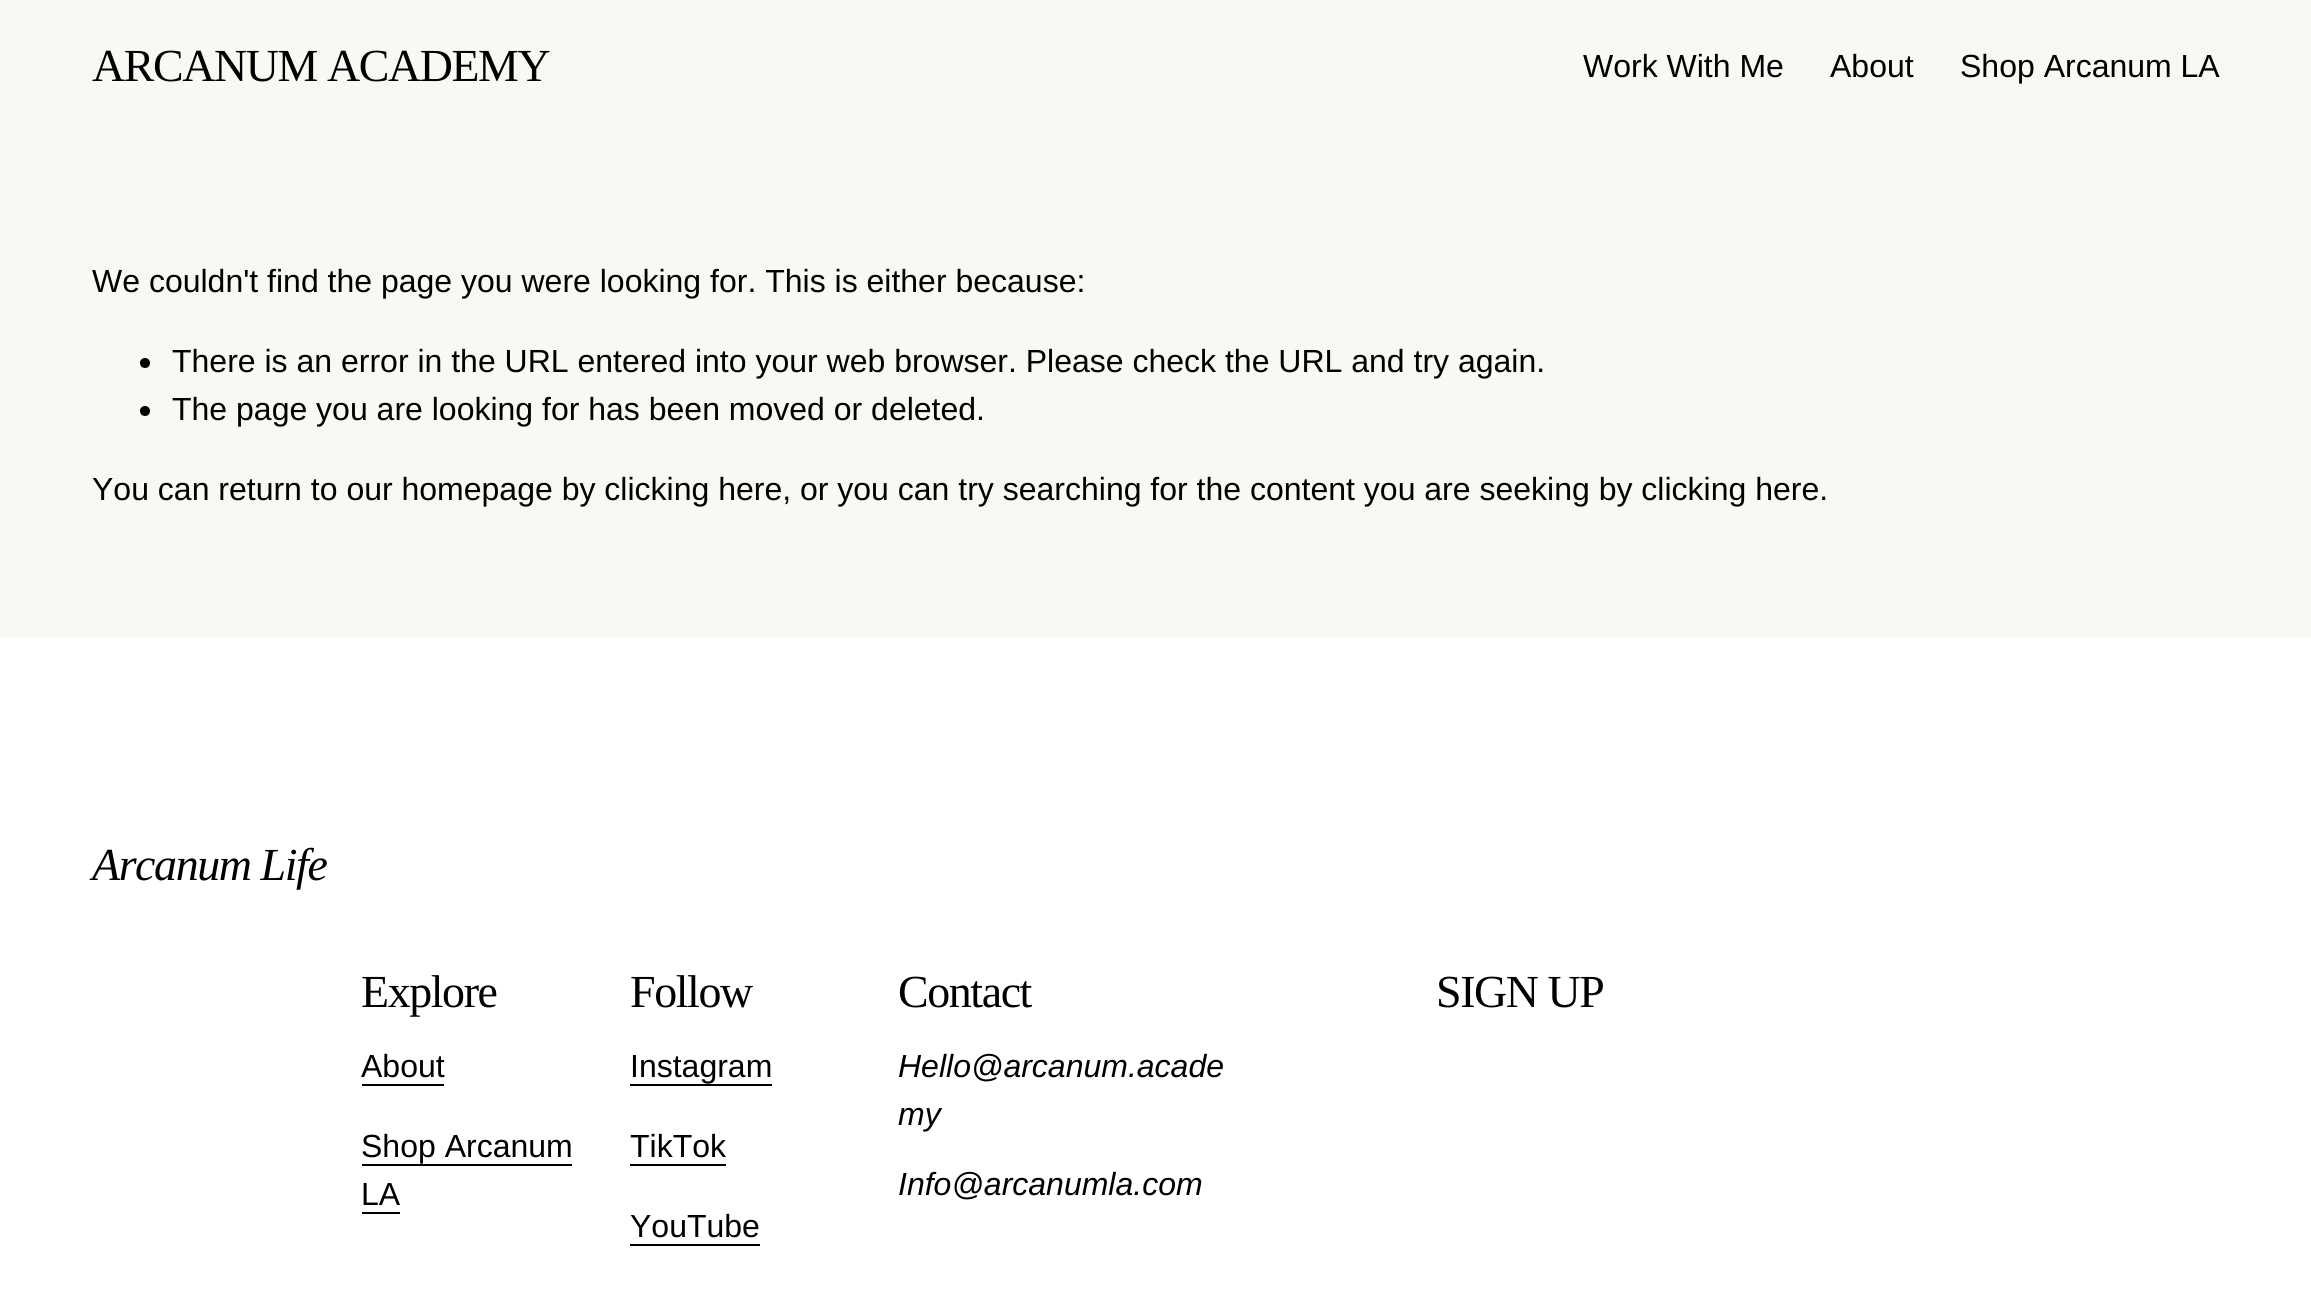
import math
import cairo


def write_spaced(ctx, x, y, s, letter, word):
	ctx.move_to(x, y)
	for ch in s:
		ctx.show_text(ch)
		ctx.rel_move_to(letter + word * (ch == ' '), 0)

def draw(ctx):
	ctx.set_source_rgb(0.973, 0.969, 0.957)
	ctx.paint()
	ctx.select_font_face('Liberation Serif')
	ctx.set_font_size(45.9)
	ctx.set_source_rgb(0, 0, 0)
	write_spaced(ctx, 92, 81, 'ARCANUM ACADEMY', -1.4, 0)
	ctx.select_font_face('Liberation Sans')
	ctx.set_font_size(32)
	for x, y, s in [
		(1583, 77, 'Work With Me'),
		(1830, 77, 'About'),
		(1960, 77, 'Shop Arcanum LA'),
		(92, 292, 'We couldn\'t find the page you were looking for. This is either because:'),
	]:
		ctx.move_to(x, y)
		ctx.show_text(s)
	ctx.new_path()
	ctx.arc(145, 363, 5, 0, 2 * math.pi)
	ctx.fill()
	ctx.move_to(172, 372)
	ctx.show_text('There is an error in the URL entered into your web browser. Please check the URL and try again.')
	ctx.new_path()
	ctx.arc(145, 411, 5, 0, 2 * math.pi)
	ctx.fill()
	ctx.move_to(172, 420)
	ctx.show_text('The page you are looking for has been moved or deleted.')
	ctx.move_to(92, 500)
	ctx.show_text('You can return to our homepage by clicking here, or you can try searching for the content you are seeking by clicking here.')
	ctx.set_source_rgb(1, 1, 1)
	ctx.rectangle(0, 638, 2311, 672)
	ctx.fill()
	ctx.select_font_face('Liberation Serif', cairo.FONT_SLANT_ITALIC)
	ctx.set_font_size(45.9)
	ctx.set_source_rgb(0, 0, 0)
	write_spaced(ctx, 92, 880, 'Arcanum Life', -1.4, 0)
	ctx.select_font_face('Liberation Serif')
	for x, y, s in [
		(361, 1007, 'Explore'),
		(630, 1007, 'Follow'),
		(898, 1007, 'Contact'),
		(1436, 1007, 'SIGN UP'),
	]:
		write_spaced(ctx, x, y, s, -1.4, 0)
	ctx.select_font_face('Liberation Sans')
	ctx.set_font_size(32)
	ctx.move_to(361, 1077)
	ctx.show_text('About')
	ctx.rectangle(362, 1084, 82, 2)
	ctx.fill()
	ctx.move_to(361, 1157)
	ctx.show_text('Shop Arcanum')
	ctx.rectangle(362, 1164, 210, 2)
	ctx.fill()
	ctx.move_to(361, 1205)
	ctx.show_text('LA')
	ctx.rectangle(362, 1212, 38, 2)
	ctx.fill()
	ctx.move_to(630, 1077)
	ctx.show_text('Instagram')
	ctx.rectangle(630, 1084, 142, 2)
	ctx.fill()
	ctx.move_to(630, 1157)
	ctx.show_text('TikTok')
	ctx.rectangle(630, 1164, 96, 2)
	ctx.fill()
	ctx.move_to(630, 1237)
	ctx.show_text('YouTube')
	ctx.rectangle(630, 1244, 130, 2)
	ctx.fill()
	ctx.select_font_face('Liberation Sans', cairo.FONT_SLANT_ITALIC)
	for x, y, s in [
		(898, 1077, 'Hello@arcanum.acade'),
		(898, 1125, 'my'),
		(898, 1195, 'Info@arcanumla.com'),
	]:
		ctx.move_to(x, y)
		ctx.show_text(s)


surface = cairo.ImageSurface(cairo.FORMAT_RGB24, 2311, 1310)
ctx = cairo.Context(surface)
options = cairo.FontOptions()
options.set_hint_metrics(cairo.HINT_METRICS_OFF)
options.set_hint_style(cairo.HINT_STYLE_NONE)
ctx.set_font_options(options)
ctx.set_miter_limit(4)
draw(ctx)
surface.write_to_png('image.png')
